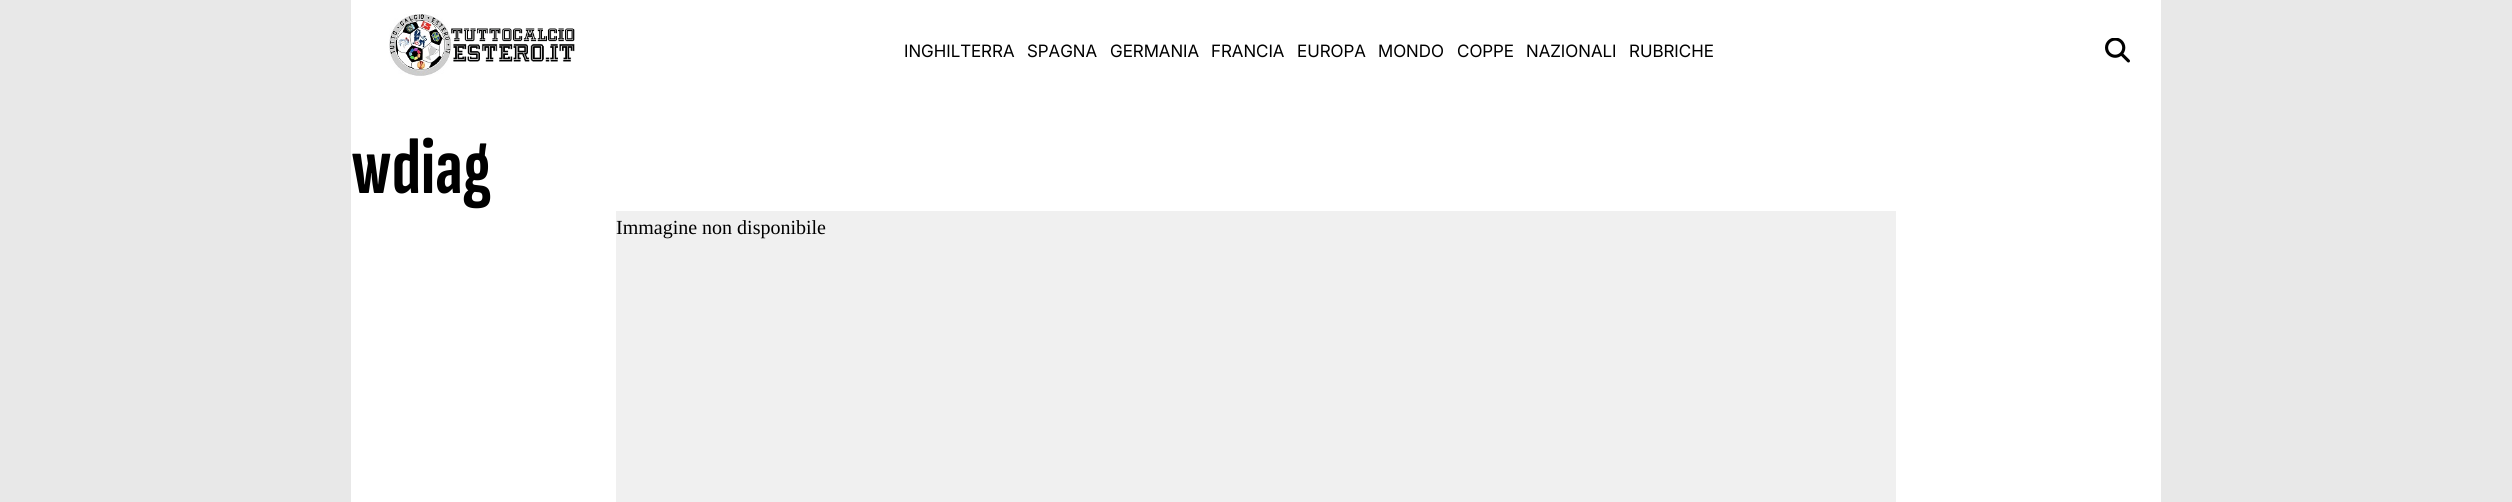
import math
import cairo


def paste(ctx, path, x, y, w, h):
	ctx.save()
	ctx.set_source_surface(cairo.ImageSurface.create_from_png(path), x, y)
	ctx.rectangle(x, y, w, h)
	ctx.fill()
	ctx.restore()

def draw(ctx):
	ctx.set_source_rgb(0.91, 0.91, 0.91)
	ctx.paint()
	ctx.set_source_rgb(1, 1, 1)
	ctx.rectangle(351, 0, 1810, 502)
	ctx.fill()
	paste(ctx, 'media/1.png', 389, 14, 186, 62)
	ctx.select_font_face('Inter')
	ctx.set_font_size(17)
	ctx.set_source_rgb(0, 0, 0)
	for x, y, s in [
		(904, 57, 'INGHILTERRA'),
		(1027, 57, 'SPAGNA'),
		(1110, 57, 'GERMANIA'),
		(1211, 57, 'FRANCIA'),
		(1297, 57, 'EUROPA'),
		(1378, 57, 'MONDO'),
		(1457, 57, 'COPPE'),
		(1526, 57, 'NAZIONALI'),
		(1629, 57, 'RUBRICHE'),
	]:
		ctx.move_to(x, y)
		ctx.show_text(s)
	paste(ctx, 'media/2.png', 2105, 38, 25, 25)
	ctx.select_font_face('Sofia Sans Extra Condensed', cairo.FONT_SLANT_NORMAL, cairo.FONT_WEIGHT_BOLD)
	ctx.set_font_size(80)
	ctx.move_to(351, 193)
	ctx.show_text('wdiag')
	ctx.set_source_rgb(0.941, 0.941, 0.941)
	ctx.rectangle(616, 211, 1280, 291)
	ctx.fill()
	ctx.select_font_face('Liberation Serif')
	ctx.set_font_size(20)
	ctx.set_source_rgb(0, 0, 0)
	ctx.move_to(616, 234)
	ctx.show_text('Immagine non disponibile')


surface = cairo.ImageSurface(cairo.FORMAT_RGB24, 2512, 502)
ctx = cairo.Context(surface)
options = cairo.FontOptions()
options.set_hint_metrics(cairo.HINT_METRICS_OFF)
options.set_hint_style(cairo.HINT_STYLE_NONE)
ctx.set_font_options(options)
ctx.set_miter_limit(4)
draw(ctx)
surface.write_to_png('image.png')
